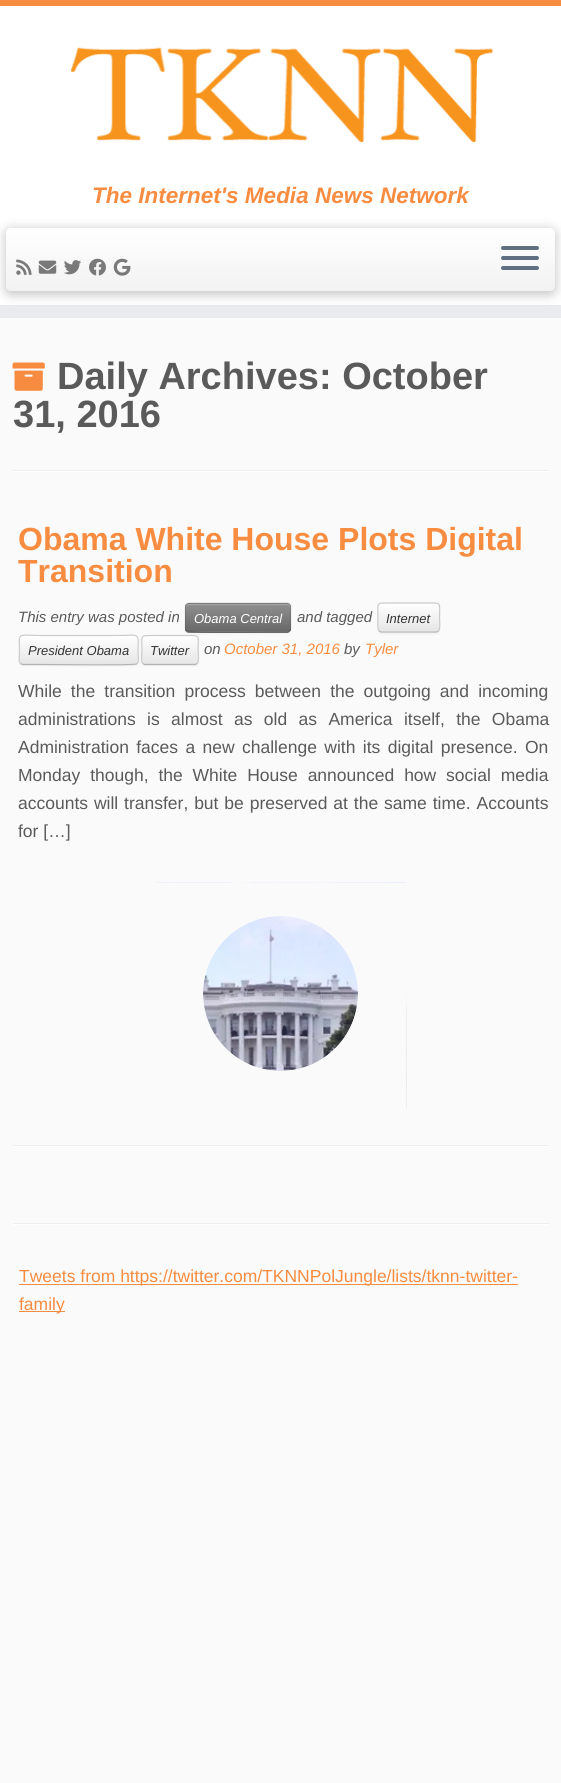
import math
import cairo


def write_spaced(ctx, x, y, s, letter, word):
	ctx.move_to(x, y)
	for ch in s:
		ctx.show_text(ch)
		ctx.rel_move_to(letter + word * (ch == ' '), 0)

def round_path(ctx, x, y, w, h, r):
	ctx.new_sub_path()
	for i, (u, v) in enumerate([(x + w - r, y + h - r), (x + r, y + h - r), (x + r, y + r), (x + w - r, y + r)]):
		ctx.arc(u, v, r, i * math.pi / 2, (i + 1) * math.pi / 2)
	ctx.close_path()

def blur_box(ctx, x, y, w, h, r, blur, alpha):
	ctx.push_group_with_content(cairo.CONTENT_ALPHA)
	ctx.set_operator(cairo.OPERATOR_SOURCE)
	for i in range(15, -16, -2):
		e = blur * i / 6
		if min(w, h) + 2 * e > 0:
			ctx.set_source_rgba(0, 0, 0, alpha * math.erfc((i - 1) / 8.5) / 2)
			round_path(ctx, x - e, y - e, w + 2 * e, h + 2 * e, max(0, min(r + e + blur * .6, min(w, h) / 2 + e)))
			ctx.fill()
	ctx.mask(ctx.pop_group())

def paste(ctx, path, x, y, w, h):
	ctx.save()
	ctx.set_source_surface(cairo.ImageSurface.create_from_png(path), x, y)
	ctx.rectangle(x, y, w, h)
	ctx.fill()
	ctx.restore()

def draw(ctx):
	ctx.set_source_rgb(0.98, 0.98, 0.98)
	ctx.paint()
	ctx.set_source_rgb(1, 1, 1)
	ctx.rectangle(0, 6, 561, 299)
	ctx.fill()
	ctx.set_source_rgb(0.969, 0.549, 0.251)
	ctx.rectangle(0, 0, 561, 6)
	ctx.fill()
	ctx.set_source_rgb(0.914, 0.918, 0.933)
	ctx.rectangle(0, 305, 561, 13)
	ctx.fill()
	paste(ctx, 'media/1.png', 71, 47, 423, 95)
	ctx.select_font_face('Liberation Sans', cairo.FONT_SLANT_ITALIC, cairo.FONT_WEIGHT_BOLD)
	ctx.set_font_size(22.5)
	ctx.set_source_rgb(0.969, 0.549, 0.251)
	ctx.move_to(92, 203)
	ctx.show_text('The Internet\'s Media News Network')
	ctx.set_source_rgb(0, 0, 0)
	blur_box(ctx, 6, 230, 549, 64, 5, 6, 0.25)
	gradient = cairo.LinearGradient(281, 227, 281, 291)
	gradient.add_color_stop_rgba(0, 1, 1, 1, 1)
	gradient.add_color_stop_rgba(1, 0.949, 0.949, 0.949, 1)
	ctx.set_source(gradient)
	round_path(ctx, 6, 228, 549, 63, 5)
	ctx.fill()
	paste(ctx, 'media/2.png', 16, 259, 16, 16)
	paste(ctx, 'media/3.png', 38, 260, 19, 14)
	paste(ctx, 'media/4.png', 64, 260, 17, 15)
	paste(ctx, 'media/5.png', 89, 258, 17, 18)
	paste(ctx, 'media/6.png', 113, 258, 18, 18)
	ctx.set_source_rgb(0.373, 0.435, 0.506)
	round_path(ctx, 501, 246, 38, 4, 2)
	ctx.fill()
	round_path(ctx, 501, 256, 38, 4, 2)
	ctx.fill()
	round_path(ctx, 501, 266, 38, 4, 2)
	ctx.fill()
	paste(ctx, 'media/7.png', 12, 362, 33, 29)
	ctx.select_font_face('Liberation Sans', cairo.FONT_SLANT_NORMAL, cairo.FONT_WEIGHT_BOLD)
	ctx.set_font_size(38)
	ctx.set_source_rgb(0.353, 0.353, 0.353)
	ctx.move_to(57, 389)
	ctx.show_text('Daily Archives: October')
	ctx.move_to(13, 427)
	ctx.show_text('31, 2016')
	ctx.set_source_rgb(0.933, 0.933, 0.933)
	ctx.rectangle(13, 470, 536, 1)
	ctx.fill()
	ctx.set_source_rgb(1, 1, 1)
	ctx.rectangle(13, 471, 536, 1)
	ctx.fill()
	ctx.set_font_size(32)
	ctx.set_source_rgb(0.969, 0.549, 0.251)
	ctx.move_to(18, 550)
	ctx.show_text('Obama White House Plots Digital')
	ctx.move_to(18, 582)
	ctx.show_text('Transition')
	ctx.select_font_face('Liberation Sans', cairo.FONT_SLANT_ITALIC)
	ctx.set_font_size(15)
	ctx.set_source_rgb(0.353, 0.353, 0.353)
	ctx.move_to(18, 622)
	ctx.show_text('This entry was posted in')
	ctx.set_source_rgb(0, 0, 0)
	blur_box(ctx, 185, 604, 106, 30, 4, 1, 0.05)
	ctx.set_source_rgb(0.502, 0.502, 0.502)
	round_path(ctx, 185, 603, 106, 30, 4)
	ctx.fill()
	ctx.save()
	round_path(ctx, 185, 603, 106, 30, 4)
	ctx.clip()
	gradient = cairo.LinearGradient(238, 604, 238, 631)
	gradient.add_color_stop_rgba(0, 0.561, 0.561, 0.561, 1)
	gradient.add_color_stop_rgba(1, 0.412, 0.412, 0.412, 1)
	ctx.set_source(gradient)
	ctx.rectangle(185, 604, 106, 27)
	ctx.fill()
	ctx.restore()
	ctx.set_source_rgb(0.647, 0.647, 0.647)
	ctx.new_path()
	ctx.move_to(189, 605)
	ctx.line_to(288, 605)
	ctx.curve_to(289, 605, 290, 606, 290, 608)
	ctx.line_to(290, 606)
	ctx.curve_to(290, 605, 289, 604, 288, 604)
	ctx.line_to(188, 604)
	ctx.curve_to(187, 604, 186, 605, 186, 606)
	ctx.line_to(186, 608)
	ctx.curve_to(186, 606, 187, 605, 189, 605)
	ctx.close_path()
	ctx.fill()
	ctx.new_path()
	ctx.move_to(289.5, 631)
	ctx.line_to(287.5, 632)
	ctx.line_to(271, 632)
	ctx.curve_to(262, 632, 189, 633, 187, 631)
	ctx.line_to(186.5, 631)
	ctx.set_source_rgba(0, 0, 0, 0.25)
	ctx.set_line_width(1.2)
	ctx.stroke()
	ctx.new_path()
	ctx.move_to(186.5, 631)
	ctx.curve_to(184.5, 628.5, 185.5, 624, 185.5, 621)
	ctx.curve_to(185.5, 599.5, 182, 603, 205, 603)
	ctx.line_to(271, 603)
	ctx.curve_to(294.5, 603, 290.5, 599.5, 290.5, 621)
	ctx.curve_to(290.5, 624, 292, 628.5, 289.5, 631)
	ctx.set_source_rgba(0, 0, 0, 0.1)
	ctx.stroke()
	ctx.set_font_size(13)
	ctx.set_source_rgb(1, 1, 1)
	ctx.move_to(194, 623)
	ctx.show_text('Obama Central')
	ctx.set_font_size(15)
	ctx.set_source_rgb(0.353, 0.353, 0.353)
	ctx.move_to(297, 622)
	ctx.show_text('and tagged')
	ctx.set_source_rgb(0, 0, 0)
	blur_box(ctx, 378, 604, 62, 30, 4, 1, 0.05)
	ctx.set_source_rgb(0.961, 0.961, 0.961)
	round_path(ctx, 378, 603, 62, 30, 4)
	ctx.fill()
	ctx.save()
	round_path(ctx, 378, 603, 62, 30, 4)
	ctx.clip()
	gradient = cairo.LinearGradient(409, 604, 409, 631)
	gradient.add_color_stop_rgba(0, 1, 1, 1, 1)
	gradient.add_color_stop_rgba(1, 0.902, 0.902, 0.902, 1)
	ctx.set_source(gradient)
	ctx.rectangle(378, 604, 62, 27)
	ctx.fill()
	ctx.restore()
	ctx.set_source_rgb(1, 1, 1)
	ctx.new_path()
	ctx.move_to(381, 605)
	ctx.line_to(436, 605)
	ctx.curve_to(438, 605, 439, 606, 439, 608)
	ctx.curve_to(439, 602, 433, 604, 427, 604)
	ctx.line_to(391, 604)
	ctx.curve_to(385, 604, 379, 602, 379, 608)
	ctx.curve_to(379, 606, 380, 605, 381, 605)
	ctx.close_path()
	ctx.fill()
	ctx.new_path()
	ctx.move_to(438.5, 631)
	ctx.line_to(436.5, 632)
	ctx.line_to(381, 632)
	ctx.line_to(379, 631)
	ctx.set_source_rgb(0.702, 0.702, 0.702)
	ctx.stroke()
	ctx.new_path()
	ctx.move_to(379, 631)
	ctx.curve_to(377, 629, 378, 620, 378, 617.5)
	ctx.curve_to(378, 602, 375.5, 603, 390.5, 603)
	ctx.line_to(427, 603)
	ctx.curve_to(442, 603, 439.5, 602, 439.5, 617.5)
	ctx.curve_to(439.5, 620, 440.5, 629, 438.5, 631)
	ctx.set_source_rgb(0.8, 0.8, 0.8)
	ctx.stroke()
	ctx.set_font_size(13)
	ctx.set_source_rgb(0.2, 0.2, 0.2)
	ctx.move_to(386, 623)
	ctx.show_text('Internet')
	ctx.set_source_rgb(0, 0, 0)
	blur_box(ctx, 19, 636, 120, 30, 4, 1, 0.05)
	ctx.set_source_rgb(0.961, 0.961, 0.961)
	round_path(ctx, 19, 635, 120, 30, 4)
	ctx.fill()
	ctx.save()
	round_path(ctx, 19, 635, 120, 30, 4)
	ctx.clip()
	gradient = cairo.LinearGradient(79, 636, 79, 664)
	gradient.add_color_stop_rgba(0, 1, 1, 1, 1)
	gradient.add_color_stop_rgba(1, 0.902, 0.902, 0.902, 1)
	ctx.set_source(gradient)
	ctx.rectangle(19, 636, 120, 28)
	ctx.fill()
	ctx.restore()
	ctx.new_path()
	ctx.move_to(137, 663.5)
	ctx.line_to(136.5, 664)
	ctx.curve_to(134.5, 665.5, 51, 664.5, 41, 664.5)
	ctx.line_to(22.5, 664.5)
	ctx.line_to(20.5, 663.5)
	ctx.set_source_rgb(0.702, 0.702, 0.702)
	ctx.stroke()
	ctx.new_path()
	ctx.move_to(20.5, 663.5)
	ctx.curve_to(18, 661, 19.5, 656.5, 19.5, 654)
	ctx.curve_to(19.5, 631, 16, 635.5, 41, 635.5)
	ctx.line_to(116, 635.5)
	ctx.curve_to(141.5, 635.5, 138, 631, 138, 654)
	ctx.curve_to(138, 656.5, 139.5, 661, 137, 663.5)
	ctx.set_source_rgb(0.8, 0.8, 0.8)
	ctx.stroke()
	ctx.set_source_rgb(0.2, 0.2, 0.2)
	ctx.move_to(28, 655)
	ctx.show_text('President Obama')
	ctx.set_source_rgb(0, 0, 0)
	blur_box(ctx, 141, 636, 58, 30, 4, 1, 0.05)
	ctx.set_source_rgb(0.961, 0.961, 0.961)
	round_path(ctx, 141, 635, 58, 30, 4)
	ctx.fill()
	ctx.save()
	round_path(ctx, 141, 635, 58, 30, 4)
	ctx.clip()
	gradient = cairo.LinearGradient(170, 636, 170, 664)
	gradient.add_color_stop_rgba(0, 1, 1, 1, 1)
	gradient.add_color_stop_rgba(1, 0.902, 0.902, 0.902, 1)
	ctx.set_source(gradient)
	ctx.rectangle(141, 636, 58, 28)
	ctx.fill()
	ctx.restore()
	ctx.set_source_rgb(1, 1, 1)
	ctx.new_path()
	ctx.move_to(145, 638)
	ctx.line_to(187, 638)
	ctx.line_to(196, 638)
	ctx.line_to(198, 640)
	ctx.curve_to(198, 634, 193, 636, 187, 636)
	ctx.line_to(145, 636)
	ctx.curve_to(143, 637, 143, 638, 143, 639)
	ctx.close_path()
	ctx.fill()
	ctx.new_path()
	ctx.move_to(197, 663.5)
	ctx.line_to(195.5, 664.5)
	ctx.line_to(144.5, 664.5)
	ctx.line_to(143, 663.5)
	ctx.set_source_rgb(0.702, 0.702, 0.702)
	ctx.stroke()
	ctx.new_path()
	ctx.move_to(143, 663.5)
	ctx.curve_to(140.5, 661.5, 142, 652.5, 142, 650)
	ctx.curve_to(142, 635, 139, 635.5, 153.5, 635.5)
	ctx.line_to(186.5, 635.5)
	ctx.curve_to(201, 635.5, 198, 635, 198, 650)
	ctx.curve_to(198, 652.5, 199.5, 661.5, 197, 663.5)
	ctx.set_source_rgb(0.8, 0.8, 0.8)
	ctx.stroke()
	ctx.set_source_rgb(0.2, 0.2, 0.2)
	ctx.move_to(150, 655)
	ctx.show_text('Twitter')
	ctx.set_font_size(15)
	ctx.set_source_rgb(0.353, 0.353, 0.353)
	ctx.move_to(204, 654)
	ctx.show_text('on')
	ctx.set_source_rgb(0.969, 0.549, 0.251)
	ctx.move_to(224, 654)
	ctx.show_text('October 31, 2016')
	ctx.set_source_rgb(0.353, 0.353, 0.353)
	ctx.move_to(344, 654)
	ctx.show_text('by')
	ctx.set_source_rgb(0.969, 0.549, 0.251)
	ctx.move_to(365, 654)
	ctx.show_text('Tyler')
	ctx.select_font_face('Liberation Sans')
	ctx.set_font_size(17.5)
	ctx.set_source_rgb(0.353, 0.353, 0.353)
	write_spaced(ctx, 18, 697, 'While the transition process between the outgoing and incoming', 0, 4.25)
	write_spaced(ctx, 18, 725, 'administrations is almost as old as America itself, the Obama', 0, 6.5)
	write_spaced(ctx, 18, 753, 'Administration faces a new challenge with its digital presence. On', 0, 2.5)
	write_spaced(ctx, 18, 781, 'Monday though, the White House announced how social media', 0, 5)
	write_spaced(ctx, 18, 809, 'accounts will transfer, but be preserved at the same time. Accounts', 0, 1)
	ctx.move_to(18, 837)
	ctx.show_text('for […]')
	paste(ctx, 'media/8.png', 156, 882, 251, 226)
	ctx.set_source_rgb(0.933, 0.933, 0.933)
	ctx.rectangle(13, 1145, 536, 1)
	ctx.fill()
	ctx.set_source_rgb(1, 1, 1)
	ctx.rectangle(13, 1146, 536, 1)
	ctx.fill()
	ctx.save()
	ctx.rectangle(156, 883, 250, 225)
	ctx.clip()
	ctx.arc(280.5, 993.5, 136.5, 0, 2 * math.pi)
	ctx.set_source_rgb(0.98, 0.98, 0.98)
	ctx.set_line_width(118)
	ctx.stroke()
	ctx.arc(280.5, 993.5, 136.5, 0, 2 * math.pi)
	ctx.stroke()
	ctx.restore()
	ctx.set_source_rgb(0.933, 0.933, 0.933)
	ctx.rectangle(13, 1223, 536, 1)
	ctx.fill()
	ctx.set_source_rgb(1, 1, 1)
	ctx.rectangle(13, 1224, 536, 1)
	ctx.fill()
	ctx.set_source_rgb(0.969, 0.549, 0.251)
	ctx.rectangle(19, 1284, 499, 1)
	ctx.fill()
	ctx.move_to(19, 1282)
	ctx.show_text('Tweets from https://twitter.com/TKNNPolJungle/lists/tknn-twitter-')
	ctx.rectangle(19, 1311, 46, 1)
	ctx.fill()
	ctx.move_to(19, 1310)
	ctx.show_text('family')


surface = cairo.ImageSurface(cairo.FORMAT_RGB24, 561, 1783)
ctx = cairo.Context(surface)
options = cairo.FontOptions()
options.set_hint_metrics(cairo.HINT_METRICS_OFF)
options.set_hint_style(cairo.HINT_STYLE_NONE)
ctx.set_font_options(options)
ctx.set_miter_limit(4)
draw(ctx)
surface.write_to_png('image.png')
